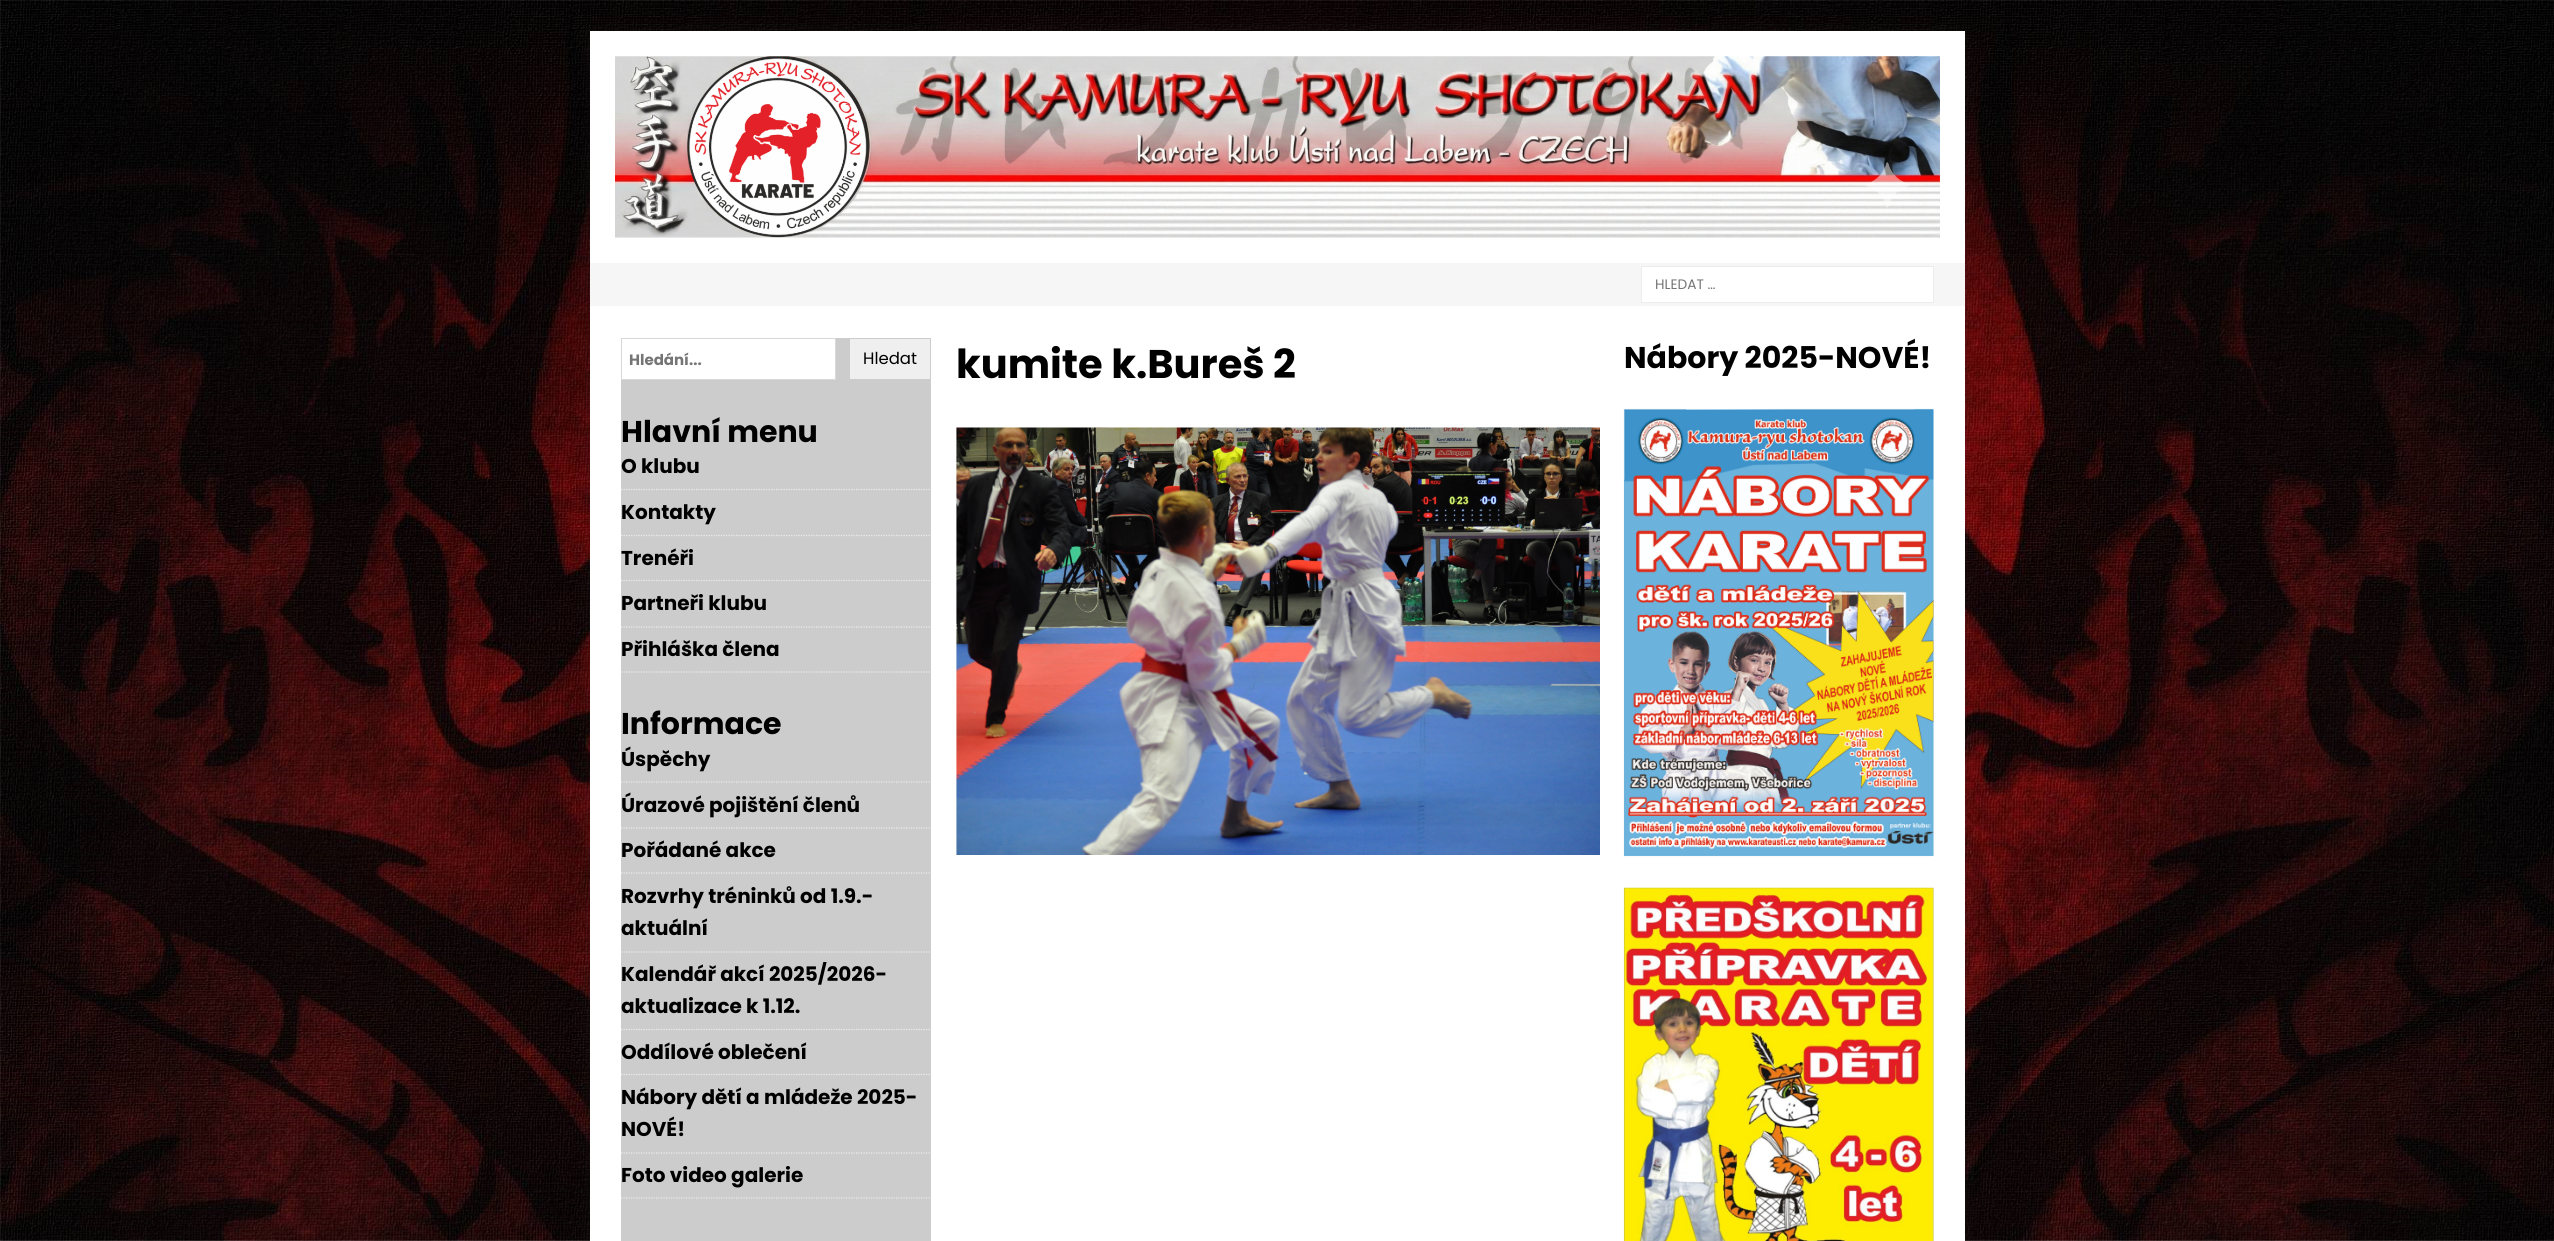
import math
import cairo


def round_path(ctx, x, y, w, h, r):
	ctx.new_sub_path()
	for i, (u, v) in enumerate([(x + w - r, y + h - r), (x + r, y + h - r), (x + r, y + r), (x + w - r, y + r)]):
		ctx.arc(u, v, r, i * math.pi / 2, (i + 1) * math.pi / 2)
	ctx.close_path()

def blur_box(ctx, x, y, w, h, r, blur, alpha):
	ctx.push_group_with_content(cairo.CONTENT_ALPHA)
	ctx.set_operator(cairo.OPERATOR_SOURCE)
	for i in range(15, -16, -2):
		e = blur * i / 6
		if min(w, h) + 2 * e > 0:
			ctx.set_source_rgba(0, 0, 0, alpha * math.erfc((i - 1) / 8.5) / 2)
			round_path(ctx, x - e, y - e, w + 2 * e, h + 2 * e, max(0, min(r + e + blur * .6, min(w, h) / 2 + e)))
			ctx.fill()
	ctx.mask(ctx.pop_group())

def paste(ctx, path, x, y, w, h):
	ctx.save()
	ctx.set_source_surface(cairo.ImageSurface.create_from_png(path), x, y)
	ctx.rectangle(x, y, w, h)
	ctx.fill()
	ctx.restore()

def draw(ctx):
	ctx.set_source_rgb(1, 1, 1)
	ctx.paint()
	paste(ctx, 'media/1.png', 0, 0, 2554, 1241)
	ctx.set_source_rgb(0.196, 0.196, 0.196)
	blur_box(ctx, 590, 31, 1375, 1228, 0, 6, 0.17)
	ctx.set_source_rgb(1, 1, 1)
	ctx.rectangle(590, 31, 1375, 232)
	ctx.fill()
	paste(ctx, 'media/2.png', 615, 56, 1325, 182)
	ctx.set_source_rgb(0.961, 0.961, 0.961)
	ctx.rectangle(590, 263, 1375, 43)
	ctx.fill()
	ctx.set_source_rgb(1, 1, 1)
	ctx.rectangle(1641.5, 266.5, 292, 36)
	ctx.fill_preserve()
	ctx.set_source_rgb(0.922, 0.922, 0.922)
	ctx.set_line_width(1)
	ctx.stroke()
	ctx.select_font_face('Poppins')
	ctx.set_font_size(13.75)
	ctx.set_source_rgb(0.459, 0.459, 0.459)
	ctx.move_to(1655, 289)
	ctx.show_text('HLEDAT …')
	ctx.set_source_rgb(1, 1, 1)
	ctx.rectangle(590, 306, 1375, 935)
	ctx.fill()
	ctx.set_source_rgb(0.8, 0.8, 0.8)
	ctx.rectangle(621, 338, 310, 903)
	ctx.fill()
	ctx.set_source_rgb(1, 1, 1)
	ctx.rectangle(621.5, 338.5, 214, 41)
	ctx.fill_preserve()
	ctx.set_source_rgb(0.843, 0.847, 0.847)
	ctx.stroke()
	ctx.select_font_face('Poppins', cairo.FONT_SLANT_NORMAL, cairo.FONT_WEIGHT_BOLD)
	ctx.set_font_size(15)
	ctx.set_source_rgb(0.459, 0.459, 0.459)
	ctx.move_to(629, 365)
	ctx.show_text('Hledání...')
	ctx.set_source_rgb(0.937, 0.937, 0.937)
	ctx.rectangle(850, 339, 80, 40)
	ctx.fill()
	ctx.select_font_face('Poppins')
	ctx.set_font_size(16.5)
	ctx.set_source_rgb(0, 0, 0)
	ctx.move_to(863, 364)
	ctx.show_text('Hledat')
	ctx.select_font_face('Poppins', cairo.FONT_SLANT_NORMAL, cairo.FONT_WEIGHT_BOLD)
	ctx.set_font_size(30)
	ctx.move_to(621, 442)
	ctx.show_text('Hlavní menu')
	ctx.new_path()
	ctx.move_to(621, 489.5)
	ctx.line_to(931, 489.5)
	ctx.set_source_rgb(0.922, 0.922, 0.922)
	ctx.set_line_width(1.2)
	ctx.set_dash([1.25, 1.25])
	ctx.stroke()
	ctx.set_font_size(20)
	ctx.set_source_rgb(0, 0, 0)
	ctx.move_to(621, 473)
	ctx.show_text('O klubu')
	ctx.new_path()
	ctx.move_to(621, 535.5)
	ctx.line_to(931, 535.5)
	ctx.set_source_rgb(0.922, 0.922, 0.922)
	ctx.stroke()
	ctx.set_source_rgb(0, 0, 0)
	ctx.move_to(621, 519)
	ctx.show_text('Kontakty')
	ctx.new_path()
	ctx.move_to(621, 580.5)
	ctx.line_to(931, 580.5)
	ctx.set_source_rgb(0.922, 0.922, 0.922)
	ctx.stroke()
	ctx.set_source_rgb(0, 0, 0)
	ctx.move_to(621, 565)
	ctx.show_text('Trenéři')
	ctx.new_path()
	ctx.move_to(621, 627)
	ctx.line_to(931, 627)
	ctx.set_source_rgb(0.922, 0.922, 0.922)
	ctx.stroke()
	ctx.set_source_rgb(0, 0, 0)
	ctx.move_to(621, 610)
	ctx.show_text('Partneři klubu')
	ctx.new_path()
	ctx.move_to(621, 672)
	ctx.line_to(931, 672)
	ctx.set_source_rgb(0.922, 0.922, 0.922)
	ctx.stroke()
	ctx.set_source_rgb(0, 0, 0)
	ctx.move_to(621, 656)
	ctx.show_text('Přihláška člena')
	ctx.set_font_size(30)
	ctx.move_to(621, 734)
	ctx.show_text('Informace')
	ctx.new_path()
	ctx.move_to(621, 782)
	ctx.line_to(931, 782)
	ctx.set_source_rgb(0.922, 0.922, 0.922)
	ctx.stroke()
	ctx.set_font_size(20)
	ctx.set_source_rgb(0, 0, 0)
	ctx.move_to(621, 766)
	ctx.show_text('Úspěchy')
	ctx.new_path()
	ctx.move_to(621, 828)
	ctx.line_to(931, 828)
	ctx.set_source_rgb(0.922, 0.922, 0.922)
	ctx.stroke()
	ctx.set_source_rgb(0, 0, 0)
	ctx.move_to(621, 812)
	ctx.show_text('Úrazové pojištění členů')
	ctx.new_path()
	ctx.move_to(621, 873)
	ctx.line_to(931, 873)
	ctx.set_source_rgb(0.922, 0.922, 0.922)
	ctx.stroke()
	ctx.set_source_rgb(0, 0, 0)
	ctx.move_to(621, 857)
	ctx.show_text('Pořádané akce')
	ctx.new_path()
	ctx.move_to(621, 952)
	ctx.line_to(931, 952)
	ctx.set_source_rgb(0.922, 0.922, 0.922)
	ctx.stroke()
	ctx.set_source_rgb(0, 0, 0)
	ctx.move_to(621, 903)
	ctx.show_text('Rozvrhy tréninků od 1.9.-')
	ctx.move_to(621, 935)
	ctx.show_text('aktuální')
	ctx.new_path()
	ctx.move_to(621, 1029.5)
	ctx.line_to(931, 1029.5)
	ctx.set_source_rgb(0.922, 0.922, 0.922)
	ctx.stroke()
	ctx.set_source_rgb(0, 0, 0)
	ctx.move_to(621, 981)
	ctx.show_text('Kalendář akcí 2025/2026-')
	ctx.move_to(621, 1013)
	ctx.show_text('aktualizace k 1.12.')
	ctx.new_path()
	ctx.move_to(621, 1074.5)
	ctx.line_to(931, 1074.5)
	ctx.set_source_rgb(0.922, 0.922, 0.922)
	ctx.stroke()
	ctx.set_source_rgb(0, 0, 0)
	ctx.move_to(621, 1059)
	ctx.show_text('Oddílové oblečení')
	ctx.new_path()
	ctx.move_to(621, 1153)
	ctx.line_to(931, 1153)
	ctx.set_source_rgb(0.922, 0.922, 0.922)
	ctx.stroke()
	ctx.set_source_rgb(0, 0, 0)
	ctx.move_to(621, 1104)
	ctx.show_text('Nábory dětí a mládeže 2025-')
	ctx.move_to(621, 1136)
	ctx.show_text('NOVÉ!')
	ctx.new_path()
	ctx.move_to(621, 1198)
	ctx.line_to(931, 1198)
	ctx.set_source_rgb(0.922, 0.922, 0.922)
	ctx.stroke()
	ctx.set_source_rgb(0, 0, 0)
	ctx.move_to(621, 1182)
	ctx.show_text('Foto video galerie')
	ctx.set_font_size(40)
	ctx.move_to(956, 378)
	ctx.show_text('kumite k.Bureš 2')
	paste(ctx, 'media/3.png', 956, 427, 644, 428)
	ctx.set_font_size(30)
	ctx.move_to(1624, 368)
	ctx.show_text('Nábory 2025-NOVÉ!')
	paste(ctx, 'media/4.png', 1623, 408, 311, 449)
	paste(ctx, 'media/5.png', 1623, 887, 311, 354)


surface = cairo.ImageSurface(cairo.FORMAT_RGB24, 2554, 1241)
ctx = cairo.Context(surface)
options = cairo.FontOptions()
options.set_hint_metrics(cairo.HINT_METRICS_OFF)
options.set_hint_style(cairo.HINT_STYLE_NONE)
ctx.set_font_options(options)
ctx.set_miter_limit(4)
draw(ctx)
surface.write_to_png('image.png')
